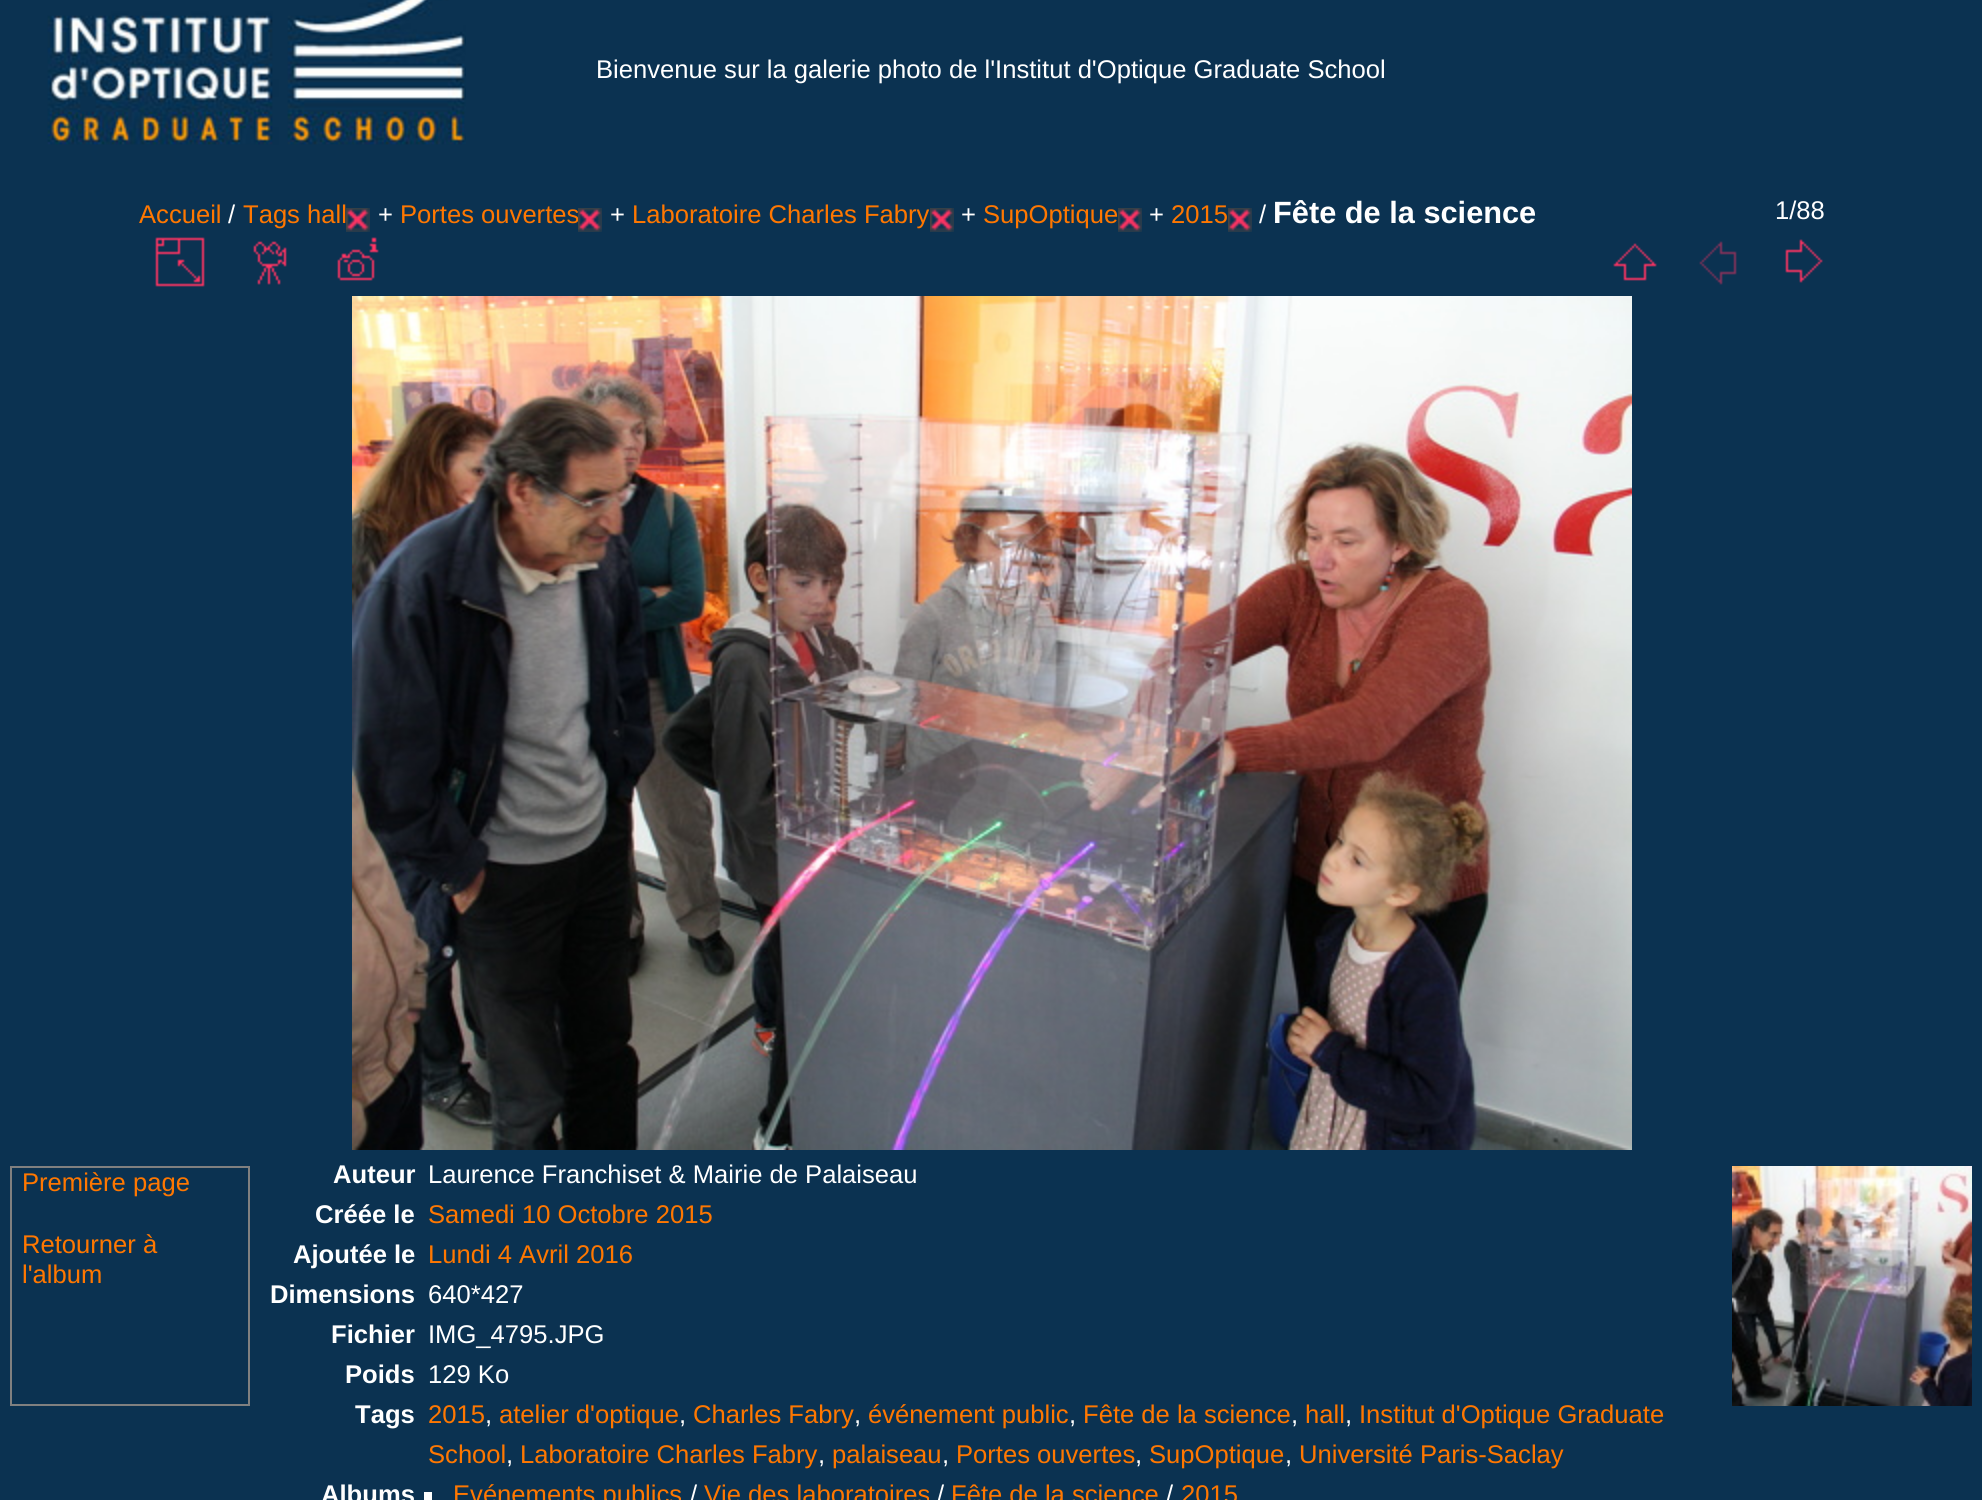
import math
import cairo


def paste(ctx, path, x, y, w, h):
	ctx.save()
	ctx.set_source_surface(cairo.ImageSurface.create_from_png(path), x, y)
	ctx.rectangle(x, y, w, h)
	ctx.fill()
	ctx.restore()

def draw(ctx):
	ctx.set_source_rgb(0.043, 0.196, 0.318)
	ctx.paint()
	paste(ctx, 'media/1.png', 47, 0, 419, 145)
	ctx.select_font_face('Liberation Sans')
	ctx.set_font_size(25.6)
	ctx.set_source_rgb(1, 1, 1)
	ctx.move_to(596, 78)
	ctx.show_text('Bienvenue sur la galerie photo de l\'Institut d\'Optique Graduate School')
	ctx.set_source_rgb(1, 0.467, 0)
	ctx.move_to(139, 223)
	ctx.show_text('Accueil')
	ctx.set_source_rgb(1, 1, 1)
	ctx.move_to(228, 223)
	ctx.show_text('/')
	ctx.set_source_rgb(1, 0.467, 0)
	ctx.move_to(243, 223)
	ctx.show_text('Tags hall')
	paste(ctx, 'media/2.png', 346, 208, 24, 24)
	ctx.set_source_rgb(1, 1, 1)
	ctx.move_to(378, 223)
	ctx.show_text('+')
	ctx.set_source_rgb(1, 0.467, 0)
	ctx.move_to(400, 223)
	ctx.show_text('Portes ouvertes')
	paste(ctx, 'media/2.png', 578, 208, 24, 24)
	ctx.set_source_rgb(1, 1, 1)
	ctx.move_to(610, 223)
	ctx.show_text('+')
	ctx.set_source_rgb(1, 0.467, 0)
	ctx.move_to(632, 223)
	ctx.show_text('Laboratoire Charles Fabry')
	paste(ctx, 'media/2.png', 930, 208, 24, 24)
	ctx.set_source_rgb(1, 1, 1)
	ctx.move_to(961, 223)
	ctx.show_text('+')
	ctx.set_source_rgb(1, 0.467, 0)
	ctx.move_to(983, 223)
	ctx.show_text('SupOptique')
	paste(ctx, 'media/2.png', 1118, 208, 24, 24)
	ctx.set_source_rgb(1, 1, 1)
	ctx.move_to(1149, 223)
	ctx.show_text('+')
	ctx.set_source_rgb(1, 0.467, 0)
	ctx.move_to(1171, 223)
	ctx.show_text('2015')
	paste(ctx, 'media/2.png', 1228, 208, 24, 24)
	ctx.set_source_rgb(1, 1, 1)
	ctx.move_to(1259, 223)
	ctx.show_text('/')
	ctx.select_font_face('Liberation Sans', cairo.FONT_SLANT_NORMAL, cairo.FONT_WEIGHT_BOLD)
	ctx.set_font_size(30.75)
	ctx.move_to(1273, 223)
	ctx.show_text('Fête de la science')
	ctx.select_font_face('Liberation Sans')
	ctx.set_font_size(25.6)
	ctx.move_to(1775, 219)
	ctx.show_text('1/88')
	paste(ctx, 'media/3.png', 155, 237, 50, 50)
	paste(ctx, 'media/4.png', 253, 241, 34, 44)
	paste(ctx, 'media/5.png', 337, 237, 42, 44)
	paste(ctx, 'media/6.png', 1613, 243, 44, 38)
	paste(ctx, 'media/7.png', 1699, 241, 38, 44)
	paste(ctx, 'media/8.png', 1785, 239, 38, 44)
	paste(ctx, 'media/9.png', 352, 296, 1280, 854)
	ctx.rectangle(11, 1167, 238, 238)
	ctx.set_source_rgb(0.502, 0.502, 0.502)
	ctx.stroke()
	ctx.set_source_rgb(1, 0.467, 0)
	for x, y, s in [
		(22, 1191, 'Première page'),
		(22, 1253, 'Retourner à'),
		(22, 1283, 'l\'album'),
	]:
		ctx.move_to(x, y)
		ctx.show_text(s)
	paste(ctx, 'media/10.png', 1732, 1166, 240, 240)
	ctx.select_font_face('Liberation Sans', cairo.FONT_SLANT_NORMAL, cairo.FONT_WEIGHT_BOLD)
	ctx.set_source_rgb(1, 1, 1)
	ctx.move_to(333, 1183)
	ctx.show_text('Auteur')
	ctx.select_font_face('Liberation Sans')
	ctx.move_to(428, 1183)
	ctx.show_text('Laurence Franchiset & Mairie de Palaiseau')
	ctx.select_font_face('Liberation Sans', cairo.FONT_SLANT_NORMAL, cairo.FONT_WEIGHT_BOLD)
	ctx.move_to(315, 1223)
	ctx.show_text('Créée le')
	ctx.select_font_face('Liberation Sans')
	ctx.set_source_rgb(1, 0.467, 0)
	ctx.move_to(428, 1223)
	ctx.show_text('Samedi 10 Octobre 2015')
	ctx.select_font_face('Liberation Sans', cairo.FONT_SLANT_NORMAL, cairo.FONT_WEIGHT_BOLD)
	ctx.set_source_rgb(1, 1, 1)
	ctx.move_to(293, 1263)
	ctx.show_text('Ajoutée le')
	ctx.select_font_face('Liberation Sans')
	ctx.set_source_rgb(1, 0.467, 0)
	ctx.move_to(428, 1263)
	ctx.show_text('Lundi 4 Avril 2016')
	ctx.select_font_face('Liberation Sans', cairo.FONT_SLANT_NORMAL, cairo.FONT_WEIGHT_BOLD)
	ctx.set_source_rgb(1, 1, 1)
	ctx.move_to(270, 1303)
	ctx.show_text('Dimensions')
	ctx.select_font_face('Liberation Sans')
	ctx.move_to(428, 1303)
	ctx.show_text('640*427')
	ctx.select_font_face('Liberation Sans', cairo.FONT_SLANT_NORMAL, cairo.FONT_WEIGHT_BOLD)
	ctx.move_to(331, 1343)
	ctx.show_text('Fichier')
	ctx.select_font_face('Liberation Sans')
	ctx.move_to(428, 1343)
	ctx.show_text('IMG_4795.JPG')
	ctx.select_font_face('Liberation Sans', cairo.FONT_SLANT_NORMAL, cairo.FONT_WEIGHT_BOLD)
	ctx.move_to(345, 1383)
	ctx.show_text('Poids')
	ctx.select_font_face('Liberation Sans')
	ctx.move_to(428, 1383)
	ctx.show_text('129 Ko')
	ctx.select_font_face('Liberation Sans', cairo.FONT_SLANT_NORMAL, cairo.FONT_WEIGHT_BOLD)
	ctx.move_to(355, 1423)
	ctx.show_text('Tags')
	ctx.select_font_face('Liberation Sans')
	ctx.set_source_rgb(1, 0.467, 0)
	ctx.move_to(428, 1423)
	ctx.show_text('2015')
	ctx.set_source_rgb(1, 1, 1)
	ctx.move_to(485, 1423)
	ctx.show_text(',')
	ctx.set_source_rgb(1, 0.467, 0)
	ctx.move_to(499, 1423)
	ctx.show_text('atelier d\'optique')
	ctx.set_source_rgb(1, 1, 1)
	ctx.move_to(679, 1423)
	ctx.show_text(',')
	ctx.set_source_rgb(1, 0.467, 0)
	ctx.move_to(693, 1423)
	ctx.show_text('Charles Fabry')
	ctx.set_source_rgb(1, 1, 1)
	ctx.move_to(854, 1423)
	ctx.show_text(',')
	ctx.set_source_rgb(1, 0.467, 0)
	ctx.move_to(868, 1423)
	ctx.show_text('événement public')
	ctx.set_source_rgb(1, 1, 1)
	ctx.move_to(1069, 1423)
	ctx.show_text(',')
	ctx.set_source_rgb(1, 0.467, 0)
	ctx.move_to(1083, 1423)
	ctx.show_text('Fête de la science')
	ctx.set_source_rgb(1, 1, 1)
	ctx.move_to(1291, 1423)
	ctx.show_text(',')
	ctx.set_source_rgb(1, 0.467, 0)
	ctx.move_to(1305, 1423)
	ctx.show_text('hall')
	ctx.set_source_rgb(1, 1, 1)
	ctx.move_to(1345, 1423)
	ctx.show_text(',')
	ctx.set_source_rgb(1, 0.467, 0)
	ctx.move_to(1359, 1423)
	ctx.show_text('Institut d\'Optique Graduate')
	ctx.move_to(428, 1463)
	ctx.show_text('School')
	ctx.set_source_rgb(1, 1, 1)
	ctx.move_to(506, 1463)
	ctx.show_text(',')
	ctx.set_source_rgb(1, 0.467, 0)
	ctx.move_to(520, 1463)
	ctx.show_text('Laboratoire Charles Fabry')
	ctx.set_source_rgb(1, 1, 1)
	ctx.move_to(818, 1463)
	ctx.show_text(',')
	ctx.set_source_rgb(1, 0.467, 0)
	ctx.move_to(832, 1463)
	ctx.show_text('palaiseau')
	ctx.set_source_rgb(1, 1, 1)
	ctx.move_to(942, 1463)
	ctx.show_text(',')
	ctx.set_source_rgb(1, 0.467, 0)
	ctx.move_to(956, 1463)
	ctx.show_text('Portes ouvertes')
	ctx.set_source_rgb(1, 1, 1)
	ctx.move_to(1135, 1463)
	ctx.show_text(',')
	ctx.set_source_rgb(1, 0.467, 0)
	ctx.move_to(1149, 1463)
	ctx.show_text('SupOptique')
	ctx.set_source_rgb(1, 1, 1)
	ctx.move_to(1285, 1463)
	ctx.show_text(',')
	ctx.set_source_rgb(1, 0.467, 0)
	ctx.move_to(1299, 1463)
	ctx.show_text('Université Paris-Saclay')
	ctx.select_font_face('Liberation Sans', cairo.FONT_SLANT_NORMAL, cairo.FONT_WEIGHT_BOLD)
	ctx.set_source_rgb(1, 1, 1)
	ctx.move_to(321, 1503)
	ctx.show_text('Albums')
	ctx.rectangle(424, 1492, 8, 8)
	ctx.fill()
	ctx.select_font_face('Liberation Sans')
	ctx.set_source_rgb(1, 0.467, 0)
	ctx.move_to(453, 1503)
	ctx.show_text('Evénements publics')
	ctx.set_source_rgb(1, 1, 1)
	ctx.move_to(690, 1503)
	ctx.show_text('/')
	ctx.set_source_rgb(1, 0.467, 0)
	ctx.move_to(704, 1503)
	ctx.show_text('Vie des laboratoires')
	ctx.set_source_rgb(1, 1, 1)
	ctx.move_to(937, 1503)
	ctx.show_text('/')
	ctx.set_source_rgb(1, 0.467, 0)
	ctx.move_to(951, 1503)
	ctx.show_text('Fête de la science')
	ctx.set_source_rgb(1, 1, 1)
	ctx.move_to(1166, 1503)
	ctx.show_text('/')
	ctx.set_source_rgb(1, 0.467, 0)
	ctx.move_to(1181, 1503)
	ctx.show_text('2015')


surface = cairo.ImageSurface(cairo.FORMAT_RGB24, 1982, 1500)
ctx = cairo.Context(surface)
options = cairo.FontOptions()
options.set_hint_metrics(cairo.HINT_METRICS_OFF)
options.set_hint_style(cairo.HINT_STYLE_NONE)
ctx.set_font_options(options)
ctx.set_miter_limit(4)
draw(ctx)
surface.write_to_png('image.png')
